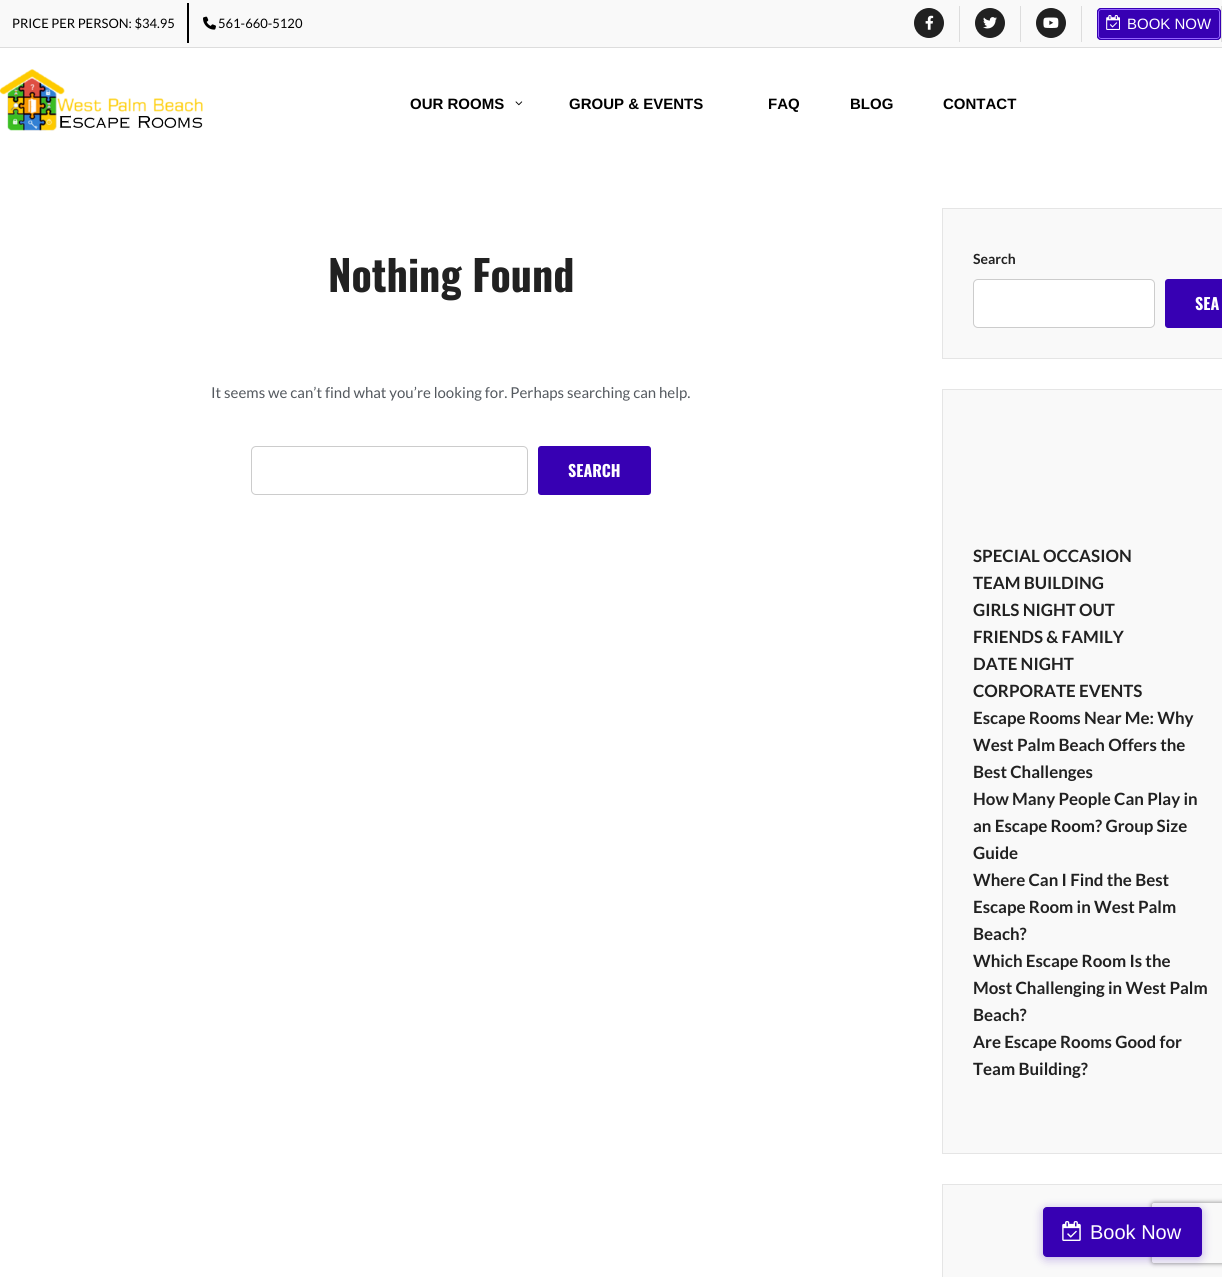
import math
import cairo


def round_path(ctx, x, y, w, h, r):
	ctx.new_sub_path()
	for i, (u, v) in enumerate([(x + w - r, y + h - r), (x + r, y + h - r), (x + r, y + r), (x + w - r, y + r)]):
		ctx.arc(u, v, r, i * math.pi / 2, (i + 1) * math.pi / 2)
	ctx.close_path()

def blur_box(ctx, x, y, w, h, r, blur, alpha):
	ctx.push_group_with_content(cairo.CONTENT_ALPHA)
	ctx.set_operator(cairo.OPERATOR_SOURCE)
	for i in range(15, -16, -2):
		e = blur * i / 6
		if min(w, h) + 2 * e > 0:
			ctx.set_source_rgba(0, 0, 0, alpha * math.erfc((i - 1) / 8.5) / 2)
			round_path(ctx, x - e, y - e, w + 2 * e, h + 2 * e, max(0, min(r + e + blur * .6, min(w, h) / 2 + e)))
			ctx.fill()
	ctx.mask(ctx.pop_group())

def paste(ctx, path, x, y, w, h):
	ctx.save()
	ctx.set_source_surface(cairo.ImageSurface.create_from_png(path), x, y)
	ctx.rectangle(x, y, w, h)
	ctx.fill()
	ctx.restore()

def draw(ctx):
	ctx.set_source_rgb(1, 1, 1)
	ctx.paint()
	ctx.set_source_rgb(0.976, 0.976, 0.976)
	ctx.rectangle(0, 0, 1222, 47)
	ctx.fill()
	ctx.set_source_rgb(0.867, 0.867, 0.867)
	ctx.rectangle(0, 47, 1222, 1)
	ctx.fill()
	ctx.select_font_face('Lato')
	ctx.set_font_size(13)
	ctx.set_source_rgb(0, 0, 0)
	ctx.move_to(12, 28)
	ctx.show_text('PRICE PER PERSON: $34.95')
	ctx.rectangle(187, 3, 2, 40)
	ctx.fill()
	paste(ctx, 'media/1.png', 203, 16, 13, 14)
	ctx.move_to(218, 28)
	ctx.show_text('561-660-5120')
	ctx.set_source_rgb(0.867, 0.867, 0.867)
	ctx.rectangle(959, 6, 1, 36)
	ctx.fill()
	ctx.set_source_rgb(0.129, 0.129, 0.129)
	ctx.arc(929, 23, 15, 0, 2 * math.pi)
	ctx.fill()
	paste(ctx, 'media/2.png', 925, 15, 9, 15)
	ctx.set_source_rgb(0.867, 0.867, 0.867)
	ctx.rectangle(1020, 6, 1, 36)
	ctx.fill()
	ctx.set_source_rgb(0.129, 0.129, 0.129)
	ctx.arc(990, 23, 15, 0, 2 * math.pi)
	ctx.fill()
	paste(ctx, 'media/3.png', 983, 17, 14, 12)
	ctx.set_source_rgb(0.867, 0.867, 0.867)
	ctx.rectangle(1081, 6, 1, 36)
	ctx.fill()
	ctx.set_source_rgb(0.129, 0.129, 0.129)
	ctx.arc(1051, 23, 15, 0, 2 * math.pi)
	ctx.fill()
	paste(ctx, 'media/4.png', 1043, 17, 16, 11)
	ctx.set_source_rgb(0.867, 0.867, 0.867)
	ctx.rectangle(1221, 6, 1, 36)
	ctx.fill()
	ctx.set_source_rgb(0.216, 0, 0.702)
	round_path(ctx, 1097, 8, 124, 32, 4)
	ctx.fill()
	round_path(ctx, 1098.5, 9.5, 121, 29, 2.5)
	ctx.set_source_rgb(0.584, 0.4, 1)
	ctx.set_line_width(1)
	ctx.stroke()
	round_path(ctx, 1097.5, 8.5, 123, 31, 3.5)
	ctx.set_source_rgb(0.216, 0, 0.702)
	ctx.stroke()
	paste(ctx, 'media/5.png', 1106, 15, 14, 15)
	ctx.select_font_face('Liberation Sans')
	ctx.set_font_size(15)
	ctx.set_source_rgb(1, 1, 1)
	ctx.move_to(1127, 29)
	ctx.show_text('BOOK NOW')
	paste(ctx, 'media/6.png', 0, 69, 203, 62)
	ctx.select_font_face('Liberation Sans', cairo.FONT_SLANT_NORMAL, cairo.FONT_WEIGHT_BOLD)
	ctx.set_source_rgb(0, 0, 0)
	ctx.move_to(410, 109)
	ctx.show_text('OUR ROOMS')
	paste(ctx, 'media/7.png', 515, 101, 8, 5)
	for x, y, s in [
		(569, 109, 'GROUP & EVENTS'),
		(768, 109, 'FAQ'),
		(850, 109, 'BLOG'),
		(943, 109, 'CONTACT'),
	]:
		ctx.move_to(x, y)
		ctx.show_text(s)
	ctx.select_font_face('Oswald', cairo.FONT_SLANT_NORMAL, cairo.FONT_WEIGHT_BOLD)
	ctx.set_font_size(42)
	ctx.set_source_rgb(0.129, 0.129, 0.129)
	ctx.move_to(328, 292)
	ctx.show_text('Nothing Found')
	ctx.select_font_face('Lato')
	ctx.set_font_size(15)
	ctx.set_source_rgb(0.329, 0.349, 0.373)
	ctx.move_to(211, 398)
	ctx.show_text('It seems we can’t find what you’re looking for. Perhaps searching can help.')
	round_path(ctx, 251.5, 446.5, 276, 48, 4.5)
	ctx.set_source_rgb(0.8, 0.8, 0.8)
	ctx.stroke()
	ctx.set_source_rgb(0.216, 0, 0.702)
	round_path(ctx, 538, 446, 113, 49, 3)
	ctx.fill()
	ctx.select_font_face('Oswald', cairo.FONT_SLANT_NORMAL, cairo.FONT_WEIGHT_BOLD)
	ctx.set_font_size(16)
	ctx.set_source_rgb(1, 1, 1)
	ctx.move_to(568, 477)
	ctx.show_text('SEARCH')
	ctx.set_source_rgb(0.976, 0.976, 0.976)
	ctx.rectangle(942.5, 208.5, 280, 150)
	ctx.fill_preserve()
	ctx.set_source_rgb(0.898, 0.898, 0.898)
	ctx.stroke()
	ctx.select_font_face('Lato', cairo.FONT_SLANT_NORMAL, cairo.FONT_WEIGHT_BOLD)
	ctx.set_font_size(14)
	ctx.set_source_rgb(0.129, 0.129, 0.129)
	ctx.move_to(973, 264)
	ctx.show_text('Search')
	ctx.set_source_rgb(1, 1, 1)
	round_path(ctx, 973, 279, 182, 49, 5)
	ctx.fill()
	round_path(ctx, 973.5, 279.5, 181, 48, 4.5)
	ctx.set_source_rgba(0, 0, 0, 0.2)
	ctx.stroke()
	ctx.set_source_rgb(0.216, 0, 0.702)
	ctx.new_path()
	ctx.move_to(1168, 279)
	ctx.line_to(1222, 279)
	ctx.line_to(1222, 328)
	ctx.line_to(1168, 328)
	ctx.curve_to(1166.5, 328, 1165, 326.5, 1165, 325)
	ctx.line_to(1165, 282)
	ctx.curve_to(1165, 280.5, 1166.5, 279, 1168, 279)
	ctx.close_path()
	ctx.fill()
	ctx.select_font_face('Oswald', cairo.FONT_SLANT_NORMAL, cairo.FONT_WEIGHT_BOLD)
	ctx.set_font_size(16)
	ctx.set_source_rgb(1, 1, 1)
	ctx.move_to(1195, 310)
	ctx.show_text('SEA')
	ctx.set_source_rgb(0.976, 0.976, 0.976)
	ctx.rectangle(942.5, 389.5, 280, 764)
	ctx.fill_preserve()
	ctx.set_source_rgb(0.898, 0.898, 0.898)
	ctx.stroke()
	ctx.select_font_face('Lato', cairo.FONT_SLANT_NORMAL, cairo.FONT_WEIGHT_BOLD)
	ctx.set_font_size(16.9)
	ctx.set_source_rgb(0.129, 0.129, 0.129)
	for x, y, s in [
		(973, 562, 'SPECIAL OCCASION'),
		(973, 589, 'TEAM BUILDING'),
		(973, 616, 'GIRLS NIGHT OUT'),
		(973, 643, 'FRIENDS & FAMILY'),
		(973, 670, 'DATE NIGHT'),
		(973, 697, 'CORPORATE EVENTS'),
		(973, 724, 'Escape Rooms Near Me: Why'),
		(973, 751, 'West Palm Beach Offers the'),
		(973, 778, 'Best Challenges'),
		(973, 805, 'How Many People Can Play in'),
		(973, 832, 'an Escape Room? Group Size'),
		(973, 859, 'Guide'),
		(973, 886, 'Where Can I Find the Best'),
		(973, 913, 'Escape Room in West Palm'),
		(973, 940, 'Beach?'),
		(973, 967, 'Which Escape Room Is the'),
		(973, 994, 'Most Challenging in West Palm'),
		(973, 1021, 'Beach?'),
		(973, 1048, 'Are Escape Rooms Good for'),
		(973, 1075, 'Team Building?'),
	]:
		ctx.move_to(x, y)
		ctx.show_text(s)
	ctx.set_source_rgb(0.976, 0.976, 0.976)
	ctx.rectangle(942.5, 1184.5, 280, 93)
	ctx.fill_preserve()
	ctx.set_source_rgb(0.898, 0.898, 0.898)
	ctx.stroke()
	ctx.set_source_rgb(0.216, 0, 0.702)
	blur_box(ctx, 1043, 1209, 159, 50, 4, 5, 0.3)
	ctx.save()
	ctx.set_fill_rule(cairo.FILL_RULE_EVEN_ODD)
	ctx.new_path()
	ctx.move_to(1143, 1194)
	ctx.line_to(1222, 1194)
	ctx.line_to(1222, 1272)
	ctx.line_to(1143, 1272)
	ctx.close_path()
	ctx.move_to(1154, 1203)
	ctx.line_to(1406, 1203)
	ctx.curve_to(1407, 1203, 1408, 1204, 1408, 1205)
	ctx.line_to(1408, 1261)
	ctx.curve_to(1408, 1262, 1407, 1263, 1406, 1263)
	ctx.line_to(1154, 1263)
	ctx.curve_to(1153, 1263, 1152, 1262, 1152, 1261)
	ctx.line_to(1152, 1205)
	ctx.curve_to(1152, 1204, 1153, 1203, 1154, 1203)
	ctx.close_path()
	ctx.clip()
	ctx.set_source_rgb(0.502, 0.502, 0.502)
	blur_box(ctx, 1152, 1203, 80, 60, 2, 2.5, 1)
	ctx.restore()
	ctx.set_source_rgb(0.216, 0, 0.702)
	round_path(ctx, 1043.5, 1207.5, 158, 49, 3.5)
	ctx.fill_preserve()
	ctx.stroke()
	paste(ctx, 'media/8.png', 1062, 1221, 19, 20)
	ctx.select_font_face('Liberation Sans')
	ctx.set_font_size(20)
	ctx.set_source_rgb(1, 1, 1)
	ctx.move_to(1090, 1239)
	ctx.show_text('Book Now')


surface = cairo.ImageSurface(cairo.FORMAT_RGB24, 1222, 1277)
ctx = cairo.Context(surface)
options = cairo.FontOptions()
options.set_hint_metrics(cairo.HINT_METRICS_OFF)
options.set_hint_style(cairo.HINT_STYLE_NONE)
ctx.set_font_options(options)
ctx.set_miter_limit(4)
draw(ctx)
surface.write_to_png('image.png')
